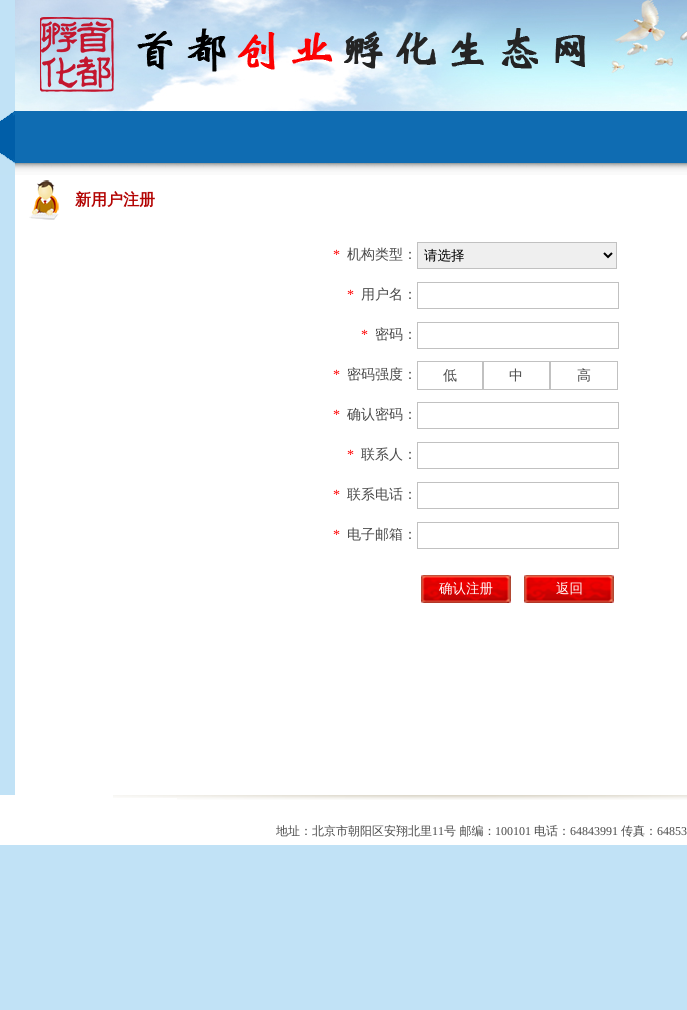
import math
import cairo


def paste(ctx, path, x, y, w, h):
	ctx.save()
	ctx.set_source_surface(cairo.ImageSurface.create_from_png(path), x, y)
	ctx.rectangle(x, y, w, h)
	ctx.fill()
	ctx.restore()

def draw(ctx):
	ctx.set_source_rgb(0.757, 0.886, 0.961)
	ctx.paint()
	paste(ctx, 'media/1.png', 15, 0, 672, 111)
	paste(ctx, 'media/2.png', 40, 17, 545, 75)
	paste(ctx, 'media/3.png', 0, 111, 687, 64)
	ctx.set_source_rgb(1, 1, 1)
	ctx.rectangle(15, 175, 672, 620)
	ctx.fill()
	paste(ctx, 'media/4.png', 29, 180, 30, 40)
	ctx.select_font_face('WenQuanYi Zen Hei', cairo.FONT_SLANT_NORMAL, cairo.FONT_WEIGHT_BOLD)
	ctx.set_font_size(16)
	ctx.set_source_rgb(0.702, 0.016, 0.012)
	ctx.move_to(75, 205)
	ctx.show_text('新用户注册')
	ctx.select_font_face('Liberation Serif')
	ctx.set_font_size(14)
	ctx.set_source_rgb(1, 0, 0)
	ctx.move_to(333, 259)
	ctx.show_text('*')
	ctx.select_font_face('WenQuanYi Zen Hei Medium')
	ctx.set_source_rgb(0.286, 0.286, 0.286)
	ctx.move_to(347, 259)
	ctx.show_text('机构类型：')
	ctx.set_source_rgb(0.937, 0.937, 0.937)
	ctx.rectangle(417.5, 242.5, 199, 26)
	ctx.fill_preserve()
	ctx.set_source_rgb(0.757, 0.757, 0.757)
	ctx.set_line_width(1)
	ctx.stroke()
	ctx.new_path()
	ctx.move_to(604, 253)
	ctx.line_to(608, 257)
	ctx.line_to(612, 253)
	ctx.set_source_rgb(0, 0, 0)
	ctx.set_line_width(2)
	ctx.stroke()
	ctx.set_font_size(13.5)
	ctx.move_to(424, 260)
	ctx.show_text('请选择')
	ctx.select_font_face('Liberation Serif')
	ctx.set_font_size(14)
	ctx.set_source_rgb(1, 0, 0)
	ctx.move_to(347, 299)
	ctx.show_text('*')
	ctx.select_font_face('WenQuanYi Zen Hei Medium')
	ctx.set_source_rgb(0.286, 0.286, 0.286)
	ctx.move_to(361, 299)
	ctx.show_text('用户名：')
	ctx.rectangle(417.5, 282.5, 201, 26)
	ctx.set_source_rgb(0.757, 0.757, 0.757)
	ctx.set_line_width(1)
	ctx.stroke()
	ctx.select_font_face('Liberation Serif')
	ctx.set_source_rgb(1, 0, 0)
	ctx.move_to(361, 339)
	ctx.show_text('*')
	ctx.select_font_face('WenQuanYi Zen Hei Medium')
	ctx.set_source_rgb(0.286, 0.286, 0.286)
	ctx.move_to(375, 339)
	ctx.show_text('密码：')
	ctx.rectangle(417.5, 322.5, 201, 26)
	ctx.set_source_rgb(0.757, 0.757, 0.757)
	ctx.stroke()
	ctx.select_font_face('Liberation Serif')
	ctx.set_source_rgb(1, 0, 0)
	ctx.move_to(333, 379)
	ctx.show_text('*')
	ctx.select_font_face('WenQuanYi Zen Hei Medium')
	ctx.set_source_rgb(0.286, 0.286, 0.286)
	ctx.move_to(347, 379)
	ctx.show_text('密码强度：')
	ctx.rectangle(417.5, 361.5, 65, 28)
	ctx.set_source_rgb(0.757, 0.757, 0.757)
	ctx.stroke()
	ctx.set_source_rgb(0.286, 0.286, 0.286)
	ctx.move_to(443, 380)
	ctx.show_text('低')
	ctx.rectangle(483.5, 361.5, 66, 28)
	ctx.set_source_rgb(0.757, 0.757, 0.757)
	ctx.stroke()
	ctx.set_source_rgb(0.286, 0.286, 0.286)
	ctx.move_to(509, 380)
	ctx.show_text('中')
	ctx.rectangle(550.5, 361.5, 67, 28)
	ctx.set_source_rgb(0.757, 0.757, 0.757)
	ctx.stroke()
	ctx.set_source_rgb(0.286, 0.286, 0.286)
	ctx.move_to(577, 380)
	ctx.show_text('高')
	ctx.select_font_face('Liberation Serif')
	ctx.set_source_rgb(1, 0, 0)
	ctx.move_to(333, 419)
	ctx.show_text('*')
	ctx.select_font_face('WenQuanYi Zen Hei Medium')
	ctx.set_source_rgb(0.286, 0.286, 0.286)
	ctx.move_to(347, 419)
	ctx.show_text('确认密码：')
	ctx.rectangle(417.5, 402.5, 201, 26)
	ctx.set_source_rgb(0.757, 0.757, 0.757)
	ctx.stroke()
	ctx.select_font_face('Liberation Serif')
	ctx.set_source_rgb(1, 0, 0)
	ctx.move_to(347, 459)
	ctx.show_text('*')
	ctx.select_font_face('WenQuanYi Zen Hei Medium')
	ctx.set_source_rgb(0.286, 0.286, 0.286)
	ctx.move_to(361, 459)
	ctx.show_text('联系人：')
	ctx.rectangle(417.5, 442.5, 201, 26)
	ctx.set_source_rgb(0.757, 0.757, 0.757)
	ctx.stroke()
	ctx.select_font_face('Liberation Serif')
	ctx.set_source_rgb(1, 0, 0)
	ctx.move_to(333, 499)
	ctx.show_text('*')
	ctx.select_font_face('WenQuanYi Zen Hei Medium')
	ctx.set_source_rgb(0.286, 0.286, 0.286)
	ctx.move_to(347, 499)
	ctx.show_text('联系电话：')
	ctx.rectangle(417.5, 482.5, 201, 26)
	ctx.set_source_rgb(0.757, 0.757, 0.757)
	ctx.stroke()
	ctx.select_font_face('Liberation Serif')
	ctx.set_source_rgb(1, 0, 0)
	ctx.move_to(333, 539)
	ctx.show_text('*')
	ctx.select_font_face('WenQuanYi Zen Hei Medium')
	ctx.set_source_rgb(0.286, 0.286, 0.286)
	ctx.move_to(347, 539)
	ctx.show_text('电子邮箱：')
	ctx.rectangle(417.5, 522.5, 201, 26)
	ctx.set_source_rgb(0.757, 0.757, 0.757)
	ctx.stroke()
	paste(ctx, 'media/5.png', 421, 575, 90, 28)
	ctx.set_font_size(13.5)
	ctx.set_source_rgb(1, 1, 1)
	ctx.move_to(439, 593)
	ctx.show_text('确认注册')
	paste(ctx, 'media/5.png', 524, 575, 90, 28)
	ctx.move_to(556, 593)
	ctx.show_text('返回')
	ctx.rectangle(0, 795, 687, 50)
	ctx.fill()
	paste(ctx, 'media/6.png', 113, 795, 574, 5)
	ctx.set_font_size(12)
	ctx.set_source_rgb(0.286, 0.286, 0.286)
	ctx.move_to(276, 835)
	ctx.show_text('地址：北京市朝阳区安翔北里')
	ctx.select_font_face('Liberation Serif')
	ctx.move_to(432, 835)
	ctx.show_text('11')
	ctx.select_font_face('WenQuanYi Zen Hei Medium')
	ctx.move_to(444, 835)
	ctx.show_text('号 邮编：')
	ctx.select_font_face('Liberation Serif')
	ctx.move_to(495, 835)
	ctx.show_text('100101')
	ctx.select_font_face('WenQuanYi Zen Hei Medium')
	ctx.move_to(534, 835)
	ctx.show_text('电话：')
	ctx.select_font_face('Liberation Serif')
	ctx.move_to(570, 835)
	ctx.show_text('64843991')
	ctx.select_font_face('WenQuanYi Zen Hei Medium')
	ctx.move_to(621, 835)
	ctx.show_text('传真：')
	ctx.select_font_face('Liberation Serif')
	ctx.move_to(657, 835)
	ctx.show_text('64853')


surface = cairo.ImageSurface(cairo.FORMAT_RGB24, 687, 1010)
ctx = cairo.Context(surface)
options = cairo.FontOptions()
options.set_hint_metrics(cairo.HINT_METRICS_OFF)
options.set_hint_style(cairo.HINT_STYLE_NONE)
ctx.set_font_options(options)
ctx.set_miter_limit(4)
draw(ctx)
surface.write_to_png('image.png')
